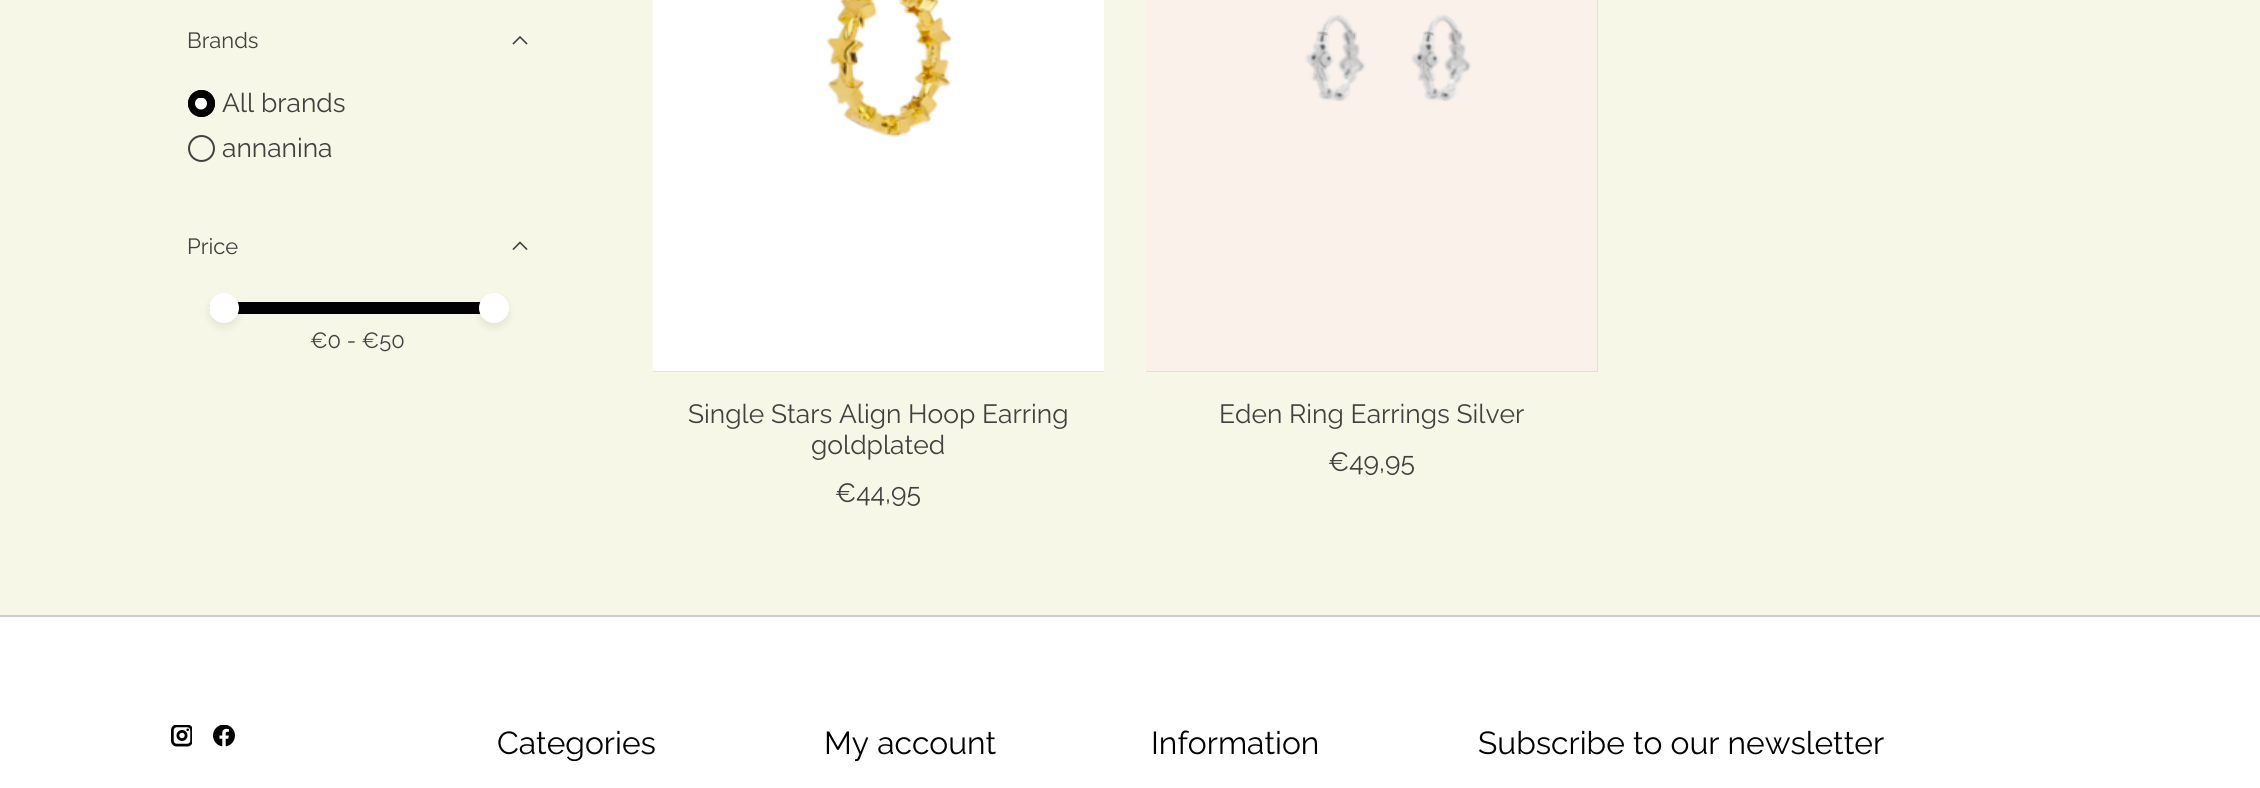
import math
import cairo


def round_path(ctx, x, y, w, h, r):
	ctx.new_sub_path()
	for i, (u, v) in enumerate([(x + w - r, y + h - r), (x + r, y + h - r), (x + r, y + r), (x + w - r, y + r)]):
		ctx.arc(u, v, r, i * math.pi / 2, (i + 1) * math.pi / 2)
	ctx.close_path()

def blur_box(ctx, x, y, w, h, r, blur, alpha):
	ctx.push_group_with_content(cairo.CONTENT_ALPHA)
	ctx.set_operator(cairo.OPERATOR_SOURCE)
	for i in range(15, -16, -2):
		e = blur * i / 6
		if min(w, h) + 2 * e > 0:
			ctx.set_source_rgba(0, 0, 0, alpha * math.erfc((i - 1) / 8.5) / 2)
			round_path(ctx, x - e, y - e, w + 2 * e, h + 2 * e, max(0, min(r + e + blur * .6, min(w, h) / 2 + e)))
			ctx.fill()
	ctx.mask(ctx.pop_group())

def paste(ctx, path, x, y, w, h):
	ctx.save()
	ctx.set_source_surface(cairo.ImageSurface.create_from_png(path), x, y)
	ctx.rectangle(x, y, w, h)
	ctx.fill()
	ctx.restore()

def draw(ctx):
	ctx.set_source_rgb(0.961, 0.965, 0.902)
	ctx.paint()
	ctx.select_font_face('Raleway')
	ctx.set_font_size(22)
	ctx.set_source_rgb(0.255, 0.255, 0.255)
	ctx.move_to(187, 48)
	ctx.show_text('Brands')
	ctx.new_path()
	ctx.move_to(513.5, 43.5)
	ctx.line_to(520, 37)
	ctx.move_to(526.5, 43.5)
	ctx.line_to(520, 37)
	ctx.set_line_width(1.6)
	ctx.set_line_cap(cairo.LINE_CAP_SQUARE)
	ctx.stroke()
	ctx.set_source_rgb(0, 0, 0)
	ctx.arc(201.5, 103.5, 13.5, 0, 2 * math.pi)
	ctx.fill()
	ctx.save()
	ctx.rectangle(195, 98, 12, 12)
	ctx.clip()
	ctx.set_source_rgb(1, 1, 1)
	ctx.arc(201, 103.5, 6, 0, 2 * math.pi)
	ctx.fill()
	ctx.restore()
	ctx.arc(201.5, 103.5, 12.5, 0, 2 * math.pi)
	ctx.set_line_width(2)
	ctx.set_line_cap(cairo.LINE_CAP_BUTT)
	ctx.stroke()
	ctx.set_font_size(26.4)
	ctx.set_source_rgb(0.255, 0.255, 0.255)
	ctx.move_to(222, 112)
	ctx.show_text('All brands')
	ctx.new_path()
	ctx.arc(201.5, 148.5, 12.5, 0, 2 * math.pi)
	ctx.stroke()
	ctx.move_to(222, 157)
	ctx.show_text('annanina')
	ctx.set_font_size(22)
	ctx.move_to(187, 254)
	ctx.show_text('Price')
	ctx.new_path()
	ctx.move_to(513.5, 249)
	ctx.line_to(520, 242.5)
	ctx.move_to(526.5, 249)
	ctx.line_to(520, 242.5)
	ctx.set_line_width(1.6)
	ctx.set_line_cap(cairo.LINE_CAP_SQUARE)
	ctx.stroke()
	ctx.set_source_rgb(0, 0, 0)
	ctx.new_path()
	ctx.move_to(215, 302)
	ctx.line_to(494, 302)
	ctx.line_to(494, 314)
	ctx.line_to(215, 314)
	ctx.curve_to(211.5, 314, 209, 311.5, 209, 308)
	ctx.curve_to(209, 304.5, 211.5, 302, 215, 302)
	ctx.close_path()
	ctx.fill()
	ctx.set_source_rgb(0, 0, 0)
	blur_box(ctx, 209, 297, 30, 30, 15, 4, 0.08)
	ctx.set_source_rgb(1, 1, 1)
	ctx.arc(224, 308, 15, 0, 2 * math.pi)
	ctx.fill()
	ctx.set_source_rgb(0, 0, 0)
	blur_box(ctx, 479, 297, 30, 30, 15, 4, 0.08)
	ctx.set_source_rgb(1, 1, 1)
	ctx.arc(494, 308, 15, 0, 2 * math.pi)
	ctx.fill()
	ctx.set_source_rgb(0.255, 0.255, 0.255)
	ctx.move_to(310, 348)
	ctx.show_text('€0 - €50')
	ctx.set_source_rgb(0.851, 0.859, 0.804)
	ctx.rectangle(653, 371, 451, 1)
	ctx.fill()
	paste(ctx, 'media/1.png', 652, 0, 452, 372)
	ctx.set_font_size(26.4)
	ctx.set_source_rgb(0.255, 0.255, 0.255)
	for x, y, s in [
		(688, 423, 'Single Stars Align Hoop Earring'),
		(811, 454, 'goldplated'),
		(835, 502, '€44,95'),
	]:
		ctx.move_to(x, y)
		ctx.show_text(s)
	ctx.set_source_rgb(0.851, 0.859, 0.804)
	ctx.rectangle(1146, 0, 452, 372)
	ctx.fill()
	paste(ctx, 'media/2.png', 1146, 0, 452, 372)
	ctx.set_source_rgb(0.255, 0.255, 0.255)
	ctx.move_to(1219, 423)
	ctx.show_text('Eden Ring Earrings Silver')
	ctx.move_to(1328, 471)
	ctx.show_text('€49,95')
	ctx.set_source_rgb(1, 1, 1)
	ctx.rectangle(0, 617, 2260, 171)
	ctx.fill()
	ctx.set_source_rgb(0.8, 0.8, 0.8)
	ctx.rectangle(0, 615, 2260, 2)
	ctx.fill()
	paste(ctx, 'media/3.png', 171, 725, 21, 22)
	paste(ctx, 'media/4.png', 213, 725, 22, 22)
	ctx.set_font_size(31.75)
	ctx.set_source_rgb(0, 0, 0)
	for x, y, s in [
		(497, 754, 'Categories'),
		(824, 754, 'My account'),
		(1151, 754, 'Information'),
		(1478, 754, 'Subscribe to our newsletter'),
	]:
		ctx.move_to(x, y)
		ctx.show_text(s)


surface = cairo.ImageSurface(cairo.FORMAT_RGB24, 2260, 788)
ctx = cairo.Context(surface)
options = cairo.FontOptions()
options.set_hint_metrics(cairo.HINT_METRICS_OFF)
options.set_hint_style(cairo.HINT_STYLE_NONE)
ctx.set_font_options(options)
ctx.set_miter_limit(4)
draw(ctx)
surface.write_to_png('image.png')
